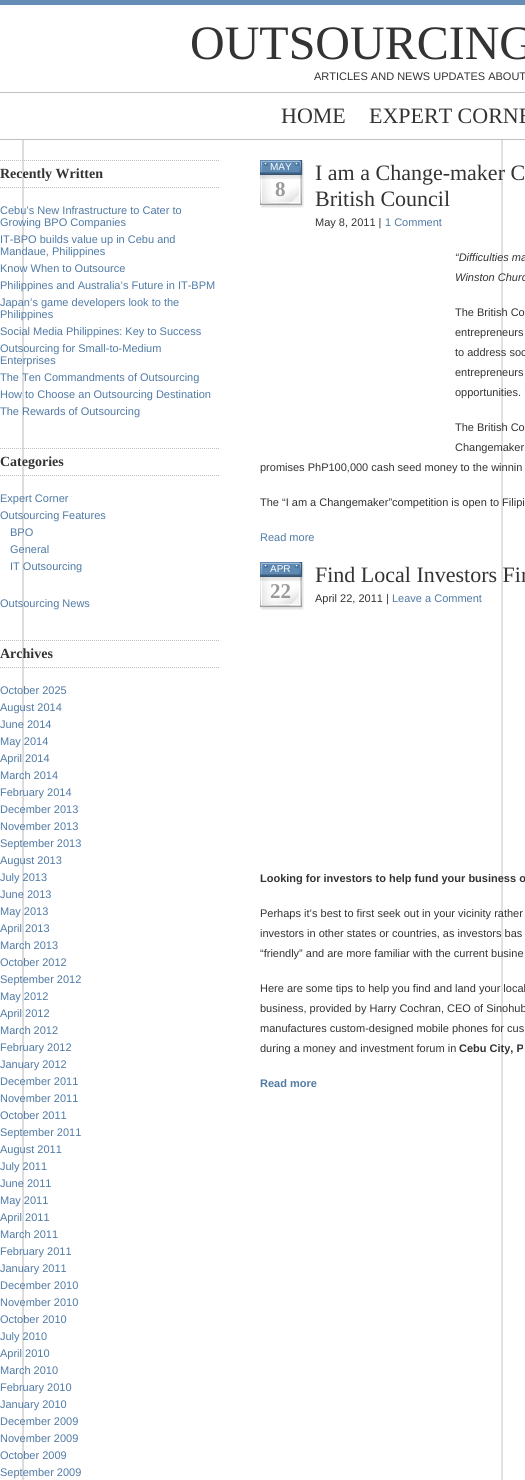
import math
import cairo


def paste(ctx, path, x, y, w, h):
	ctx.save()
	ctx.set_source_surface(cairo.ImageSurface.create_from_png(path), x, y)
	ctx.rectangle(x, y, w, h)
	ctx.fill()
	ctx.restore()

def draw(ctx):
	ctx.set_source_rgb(1, 1, 1)
	ctx.paint()
	paste(ctx, 'media/1.png', 22, 140, 481, 1340)
	ctx.set_source_rgb(0.396, 0.553, 0.71)
	ctx.rectangle(0, 0, 525, 5)
	ctx.fill()
	ctx.select_font_face('Liberation Serif')
	ctx.set_font_size(48)
	ctx.set_source_rgb(0.2, 0.2, 0.2)
	ctx.move_to(190, 59)
	ctx.show_text('OUTSOURCING')
	ctx.select_font_face('Liberation Sans')
	ctx.set_font_size(11)
	ctx.move_to(314, 80)
	ctx.show_text('ARTICLES AND NEWS UPDATES ABOUT')
	ctx.set_source_rgb(0.753, 0.753, 0.753)
	ctx.rectangle(0, 92, 525, 1)
	ctx.fill()
	ctx.rectangle(0, 139, 525, 1)
	ctx.fill()
	ctx.select_font_face('Liberation Serif')
	ctx.set_font_size(22)
	ctx.set_source_rgb(0.2, 0.2, 0.2)
	ctx.move_to(281, 123)
	ctx.show_text('HOME')
	ctx.move_to(369, 123)
	ctx.show_text('EXPERT CORNE')
	ctx.new_path()
	ctx.move_to(0, 160.5)
	ctx.line_to(220, 160.5)
	ctx.set_source_rgb(0.753, 0.753, 0.753)
	ctx.set_line_width(1)
	ctx.set_dash([1, 1])
	ctx.stroke()
	ctx.new_path()
	ctx.move_to(0, 187.5)
	ctx.line_to(220, 187.5)
	ctx.stroke()
	ctx.select_font_face('Liberation Serif', cairo.FONT_SLANT_NORMAL, cairo.FONT_WEIGHT_BOLD)
	ctx.set_font_size(14)
	ctx.set_source_rgb(0.2, 0.2, 0.2)
	ctx.move_to(0, 178)
	ctx.show_text('Recently Written')
	ctx.select_font_face('Liberation Sans')
	ctx.set_font_size(11)
	ctx.set_source_rgb(0.314, 0.478, 0.647)
	for x, y, s in [
		(0, 214, 'Cebu’s New Infrastructure to Cater to'),
		(0, 226, 'Growing BPO Companies'),
		(0, 243, 'IT-BPO builds value up in Cebu and'),
		(0, 255, 'Mandaue, Philippines'),
		(0, 272, 'Know When to Outsource'),
		(0, 289, 'Philippines and Australia’s Future in IT-BPM'),
		(0, 306, 'Japan’s game developers look to the'),
		(0, 318, 'Philippines'),
		(0, 335, 'Social Media Philippines: Key to Success'),
		(0, 352, 'Outsourcing for Small-to-Medium'),
		(0, 364, 'Enterprises'),
		(0, 381, 'The Ten Commandments of Outsourcing'),
		(0, 398, 'How to Choose an Outsourcing Destination'),
		(0, 415, 'The Rewards of Outsourcing'),
	]:
		ctx.move_to(x, y)
		ctx.show_text(s)
	ctx.new_path()
	ctx.move_to(0, 448.5)
	ctx.line_to(220, 448.5)
	ctx.set_source_rgb(0.753, 0.753, 0.753)
	ctx.stroke()
	ctx.new_path()
	ctx.move_to(0, 475.5)
	ctx.line_to(220, 475.5)
	ctx.stroke()
	ctx.select_font_face('Liberation Serif', cairo.FONT_SLANT_NORMAL, cairo.FONT_WEIGHT_BOLD)
	ctx.set_font_size(14)
	ctx.set_source_rgb(0.2, 0.2, 0.2)
	ctx.move_to(0, 466)
	ctx.show_text('Categories')
	ctx.select_font_face('Liberation Sans')
	ctx.set_font_size(11)
	ctx.set_source_rgb(0.314, 0.478, 0.647)
	for x, y, s in [
		(0, 502, 'Expert Corner'),
		(0, 519, 'Outsourcing Features'),
		(10, 536, 'BPO'),
		(10, 553, 'General'),
		(10, 570, 'IT Outsourcing'),
		(0, 607, 'Outsourcing News'),
	]:
		ctx.move_to(x, y)
		ctx.show_text(s)
	ctx.new_path()
	ctx.move_to(0, 640.5)
	ctx.line_to(220, 640.5)
	ctx.set_source_rgb(0.753, 0.753, 0.753)
	ctx.stroke()
	ctx.new_path()
	ctx.move_to(0, 667.5)
	ctx.line_to(220, 667.5)
	ctx.stroke()
	ctx.select_font_face('Liberation Serif', cairo.FONT_SLANT_NORMAL, cairo.FONT_WEIGHT_BOLD)
	ctx.set_font_size(14)
	ctx.set_source_rgb(0.2, 0.2, 0.2)
	ctx.move_to(0, 658)
	ctx.show_text('Archives')
	ctx.select_font_face('Liberation Sans')
	ctx.set_font_size(11)
	ctx.set_source_rgb(0.314, 0.478, 0.647)
	for x, y, s in [
		(0, 694, 'October 2025'),
		(0, 711, 'August 2014'),
		(0, 728, 'June 2014'),
		(0, 745, 'May 2014'),
		(0, 762, 'April 2014'),
		(0, 779, 'March 2014'),
		(0, 796, 'February 2014'),
		(0, 813, 'December 2013'),
		(0, 830, 'November 2013'),
		(0, 847, 'September 2013'),
		(0, 864, 'August 2013'),
		(0, 881, 'July 2013'),
		(0, 898, 'June 2013'),
		(0, 915, 'May 2013'),
		(0, 932, 'April 2013'),
		(0, 949, 'March 2013'),
		(0, 966, 'October 2012'),
		(0, 983, 'September 2012'),
		(0, 1000, 'May 2012'),
		(0, 1017, 'April 2012'),
		(0, 1034, 'March 2012'),
		(0, 1051, 'February 2012'),
		(0, 1068, 'January 2012'),
		(0, 1085, 'December 2011'),
		(0, 1102, 'November 2011'),
		(0, 1119, 'October 2011'),
		(0, 1136, 'September 2011'),
		(0, 1153, 'August 2011'),
		(0, 1170, 'July 2011'),
		(0, 1187, 'June 2011'),
		(0, 1204, 'May 2011'),
		(0, 1221, 'April 2011'),
		(0, 1238, 'March 2011'),
		(0, 1255, 'February 2011'),
		(0, 1272, 'January 2011'),
		(0, 1289, 'December 2010'),
		(0, 1306, 'November 2010'),
		(0, 1323, 'October 2010'),
		(0, 1340, 'July 2010'),
		(0, 1357, 'April 2010'),
		(0, 1374, 'March 2010'),
		(0, 1391, 'February 2010'),
		(0, 1408, 'January 2010'),
		(0, 1425, 'December 2009'),
		(0, 1442, 'November 2009'),
		(0, 1459, 'October 2009'),
		(0, 1476, 'September 2009'),
	]:
		ctx.move_to(x, y)
		ctx.show_text(s)
	paste(ctx, 'media/2.png', 260, 160, 44, 48)
	ctx.set_font_size(10)
	ctx.set_source_rgb(1, 1, 1)
	ctx.move_to(270, 170)
	ctx.show_text('MAY')
	ctx.select_font_face('Liberation Serif', cairo.FONT_SLANT_NORMAL, cairo.FONT_WEIGHT_BOLD)
	ctx.set_font_size(21)
	ctx.set_source_rgb(0.6, 0.6, 0.6)
	ctx.move_to(275, 196)
	ctx.show_text('8')
	ctx.select_font_face('Liberation Serif')
	ctx.set_font_size(22)
	ctx.set_source_rgb(0.2, 0.2, 0.2)
	ctx.move_to(315, 180)
	ctx.show_text('I am a Change-maker C')
	ctx.move_to(315, 206)
	ctx.show_text('British Council')
	ctx.select_font_face('Liberation Sans')
	ctx.set_font_size(11)
	ctx.move_to(315, 226)
	ctx.show_text('May 8, 2011 |')
	ctx.set_source_rgb(0.314, 0.478, 0.647)
	ctx.move_to(385, 226)
	ctx.show_text('1 Comment')
	ctx.select_font_face('Liberation Sans', cairo.FONT_SLANT_ITALIC)
	ctx.set_source_rgb(0.2, 0.2, 0.2)
	ctx.move_to(455, 261)
	ctx.show_text('“Difficulties ma')
	ctx.move_to(455, 281)
	ctx.show_text('Winston Churc')
	ctx.select_font_face('Liberation Sans')
	for x, y, s in [
		(455, 316, 'The British Co'),
		(455, 336, 'entrepreneurs'),
		(455, 356, 'to address soc'),
		(455, 376, 'entrepreneurs'),
		(455, 396, 'opportunities.'),
		(455, 431, 'The British Co'),
		(455, 451, 'Changemaker'),
		(260, 471, 'promises PhP100,000 cash seed money to the winnin'),
		(260, 506, 'The “I am a Changemaker”competition is open to Filipi'),
	]:
		ctx.move_to(x, y)
		ctx.show_text(s)
	ctx.set_source_rgb(0.314, 0.478, 0.647)
	ctx.move_to(260, 541)
	ctx.show_text('Read more')
	paste(ctx, 'media/2.png', 260, 562, 44, 48)
	ctx.set_font_size(10)
	ctx.set_source_rgb(1, 1, 1)
	ctx.move_to(270, 572)
	ctx.show_text('APR')
	ctx.select_font_face('Liberation Serif', cairo.FONT_SLANT_NORMAL, cairo.FONT_WEIGHT_BOLD)
	ctx.set_font_size(21)
	ctx.set_source_rgb(0.6, 0.6, 0.6)
	ctx.move_to(270, 598)
	ctx.show_text('22')
	ctx.select_font_face('Liberation Serif')
	ctx.set_font_size(22)
	ctx.set_source_rgb(0.2, 0.2, 0.2)
	ctx.move_to(315, 582)
	ctx.show_text('Find Local Investors Fir')
	ctx.select_font_face('Liberation Sans')
	ctx.set_font_size(11)
	ctx.move_to(315, 602)
	ctx.show_text('April 22, 2011 |')
	ctx.set_source_rgb(0.314, 0.478, 0.647)
	ctx.move_to(392, 602)
	ctx.show_text('Leave a Comment')
	ctx.select_font_face('Liberation Sans', cairo.FONT_SLANT_NORMAL, cairo.FONT_WEIGHT_BOLD)
	ctx.set_source_rgb(0.2, 0.2, 0.2)
	ctx.move_to(260, 882)
	ctx.show_text('Looking for investors to help fund your business o')
	ctx.select_font_face('Liberation Sans')
	for x, y, s in [
		(260, 917, 'Perhaps it’s best to first seek out in your vicinity rather'),
		(260, 937, 'investors in other states or countries, as investors bas'),
		(260, 957, '“friendly” and are more familiar with the current busine'),
		(260, 992, 'Here are some tips to help you find and land your local'),
		(260, 1012, 'business, provided by Harry Cochran, CEO of Sinohub'),
		(260, 1032, 'manufactures custom-designed mobile phones for cus'),
		(260, 1052, 'during a money and investment forum in'),
	]:
		ctx.move_to(x, y)
		ctx.show_text(s)
	ctx.select_font_face('Liberation Sans', cairo.FONT_SLANT_NORMAL, cairo.FONT_WEIGHT_BOLD)
	ctx.move_to(459, 1052)
	ctx.show_text('Cebu City, P')
	ctx.set_source_rgb(0.314, 0.478, 0.647)
	ctx.move_to(260, 1087)
	ctx.show_text('Read more')


surface = cairo.ImageSurface(cairo.FORMAT_RGB24, 525, 1480)
ctx = cairo.Context(surface)
options = cairo.FontOptions()
options.set_hint_metrics(cairo.HINT_METRICS_OFF)
options.set_hint_style(cairo.HINT_STYLE_NONE)
ctx.set_font_options(options)
ctx.set_miter_limit(4)
draw(ctx)
surface.write_to_png('image.png')
